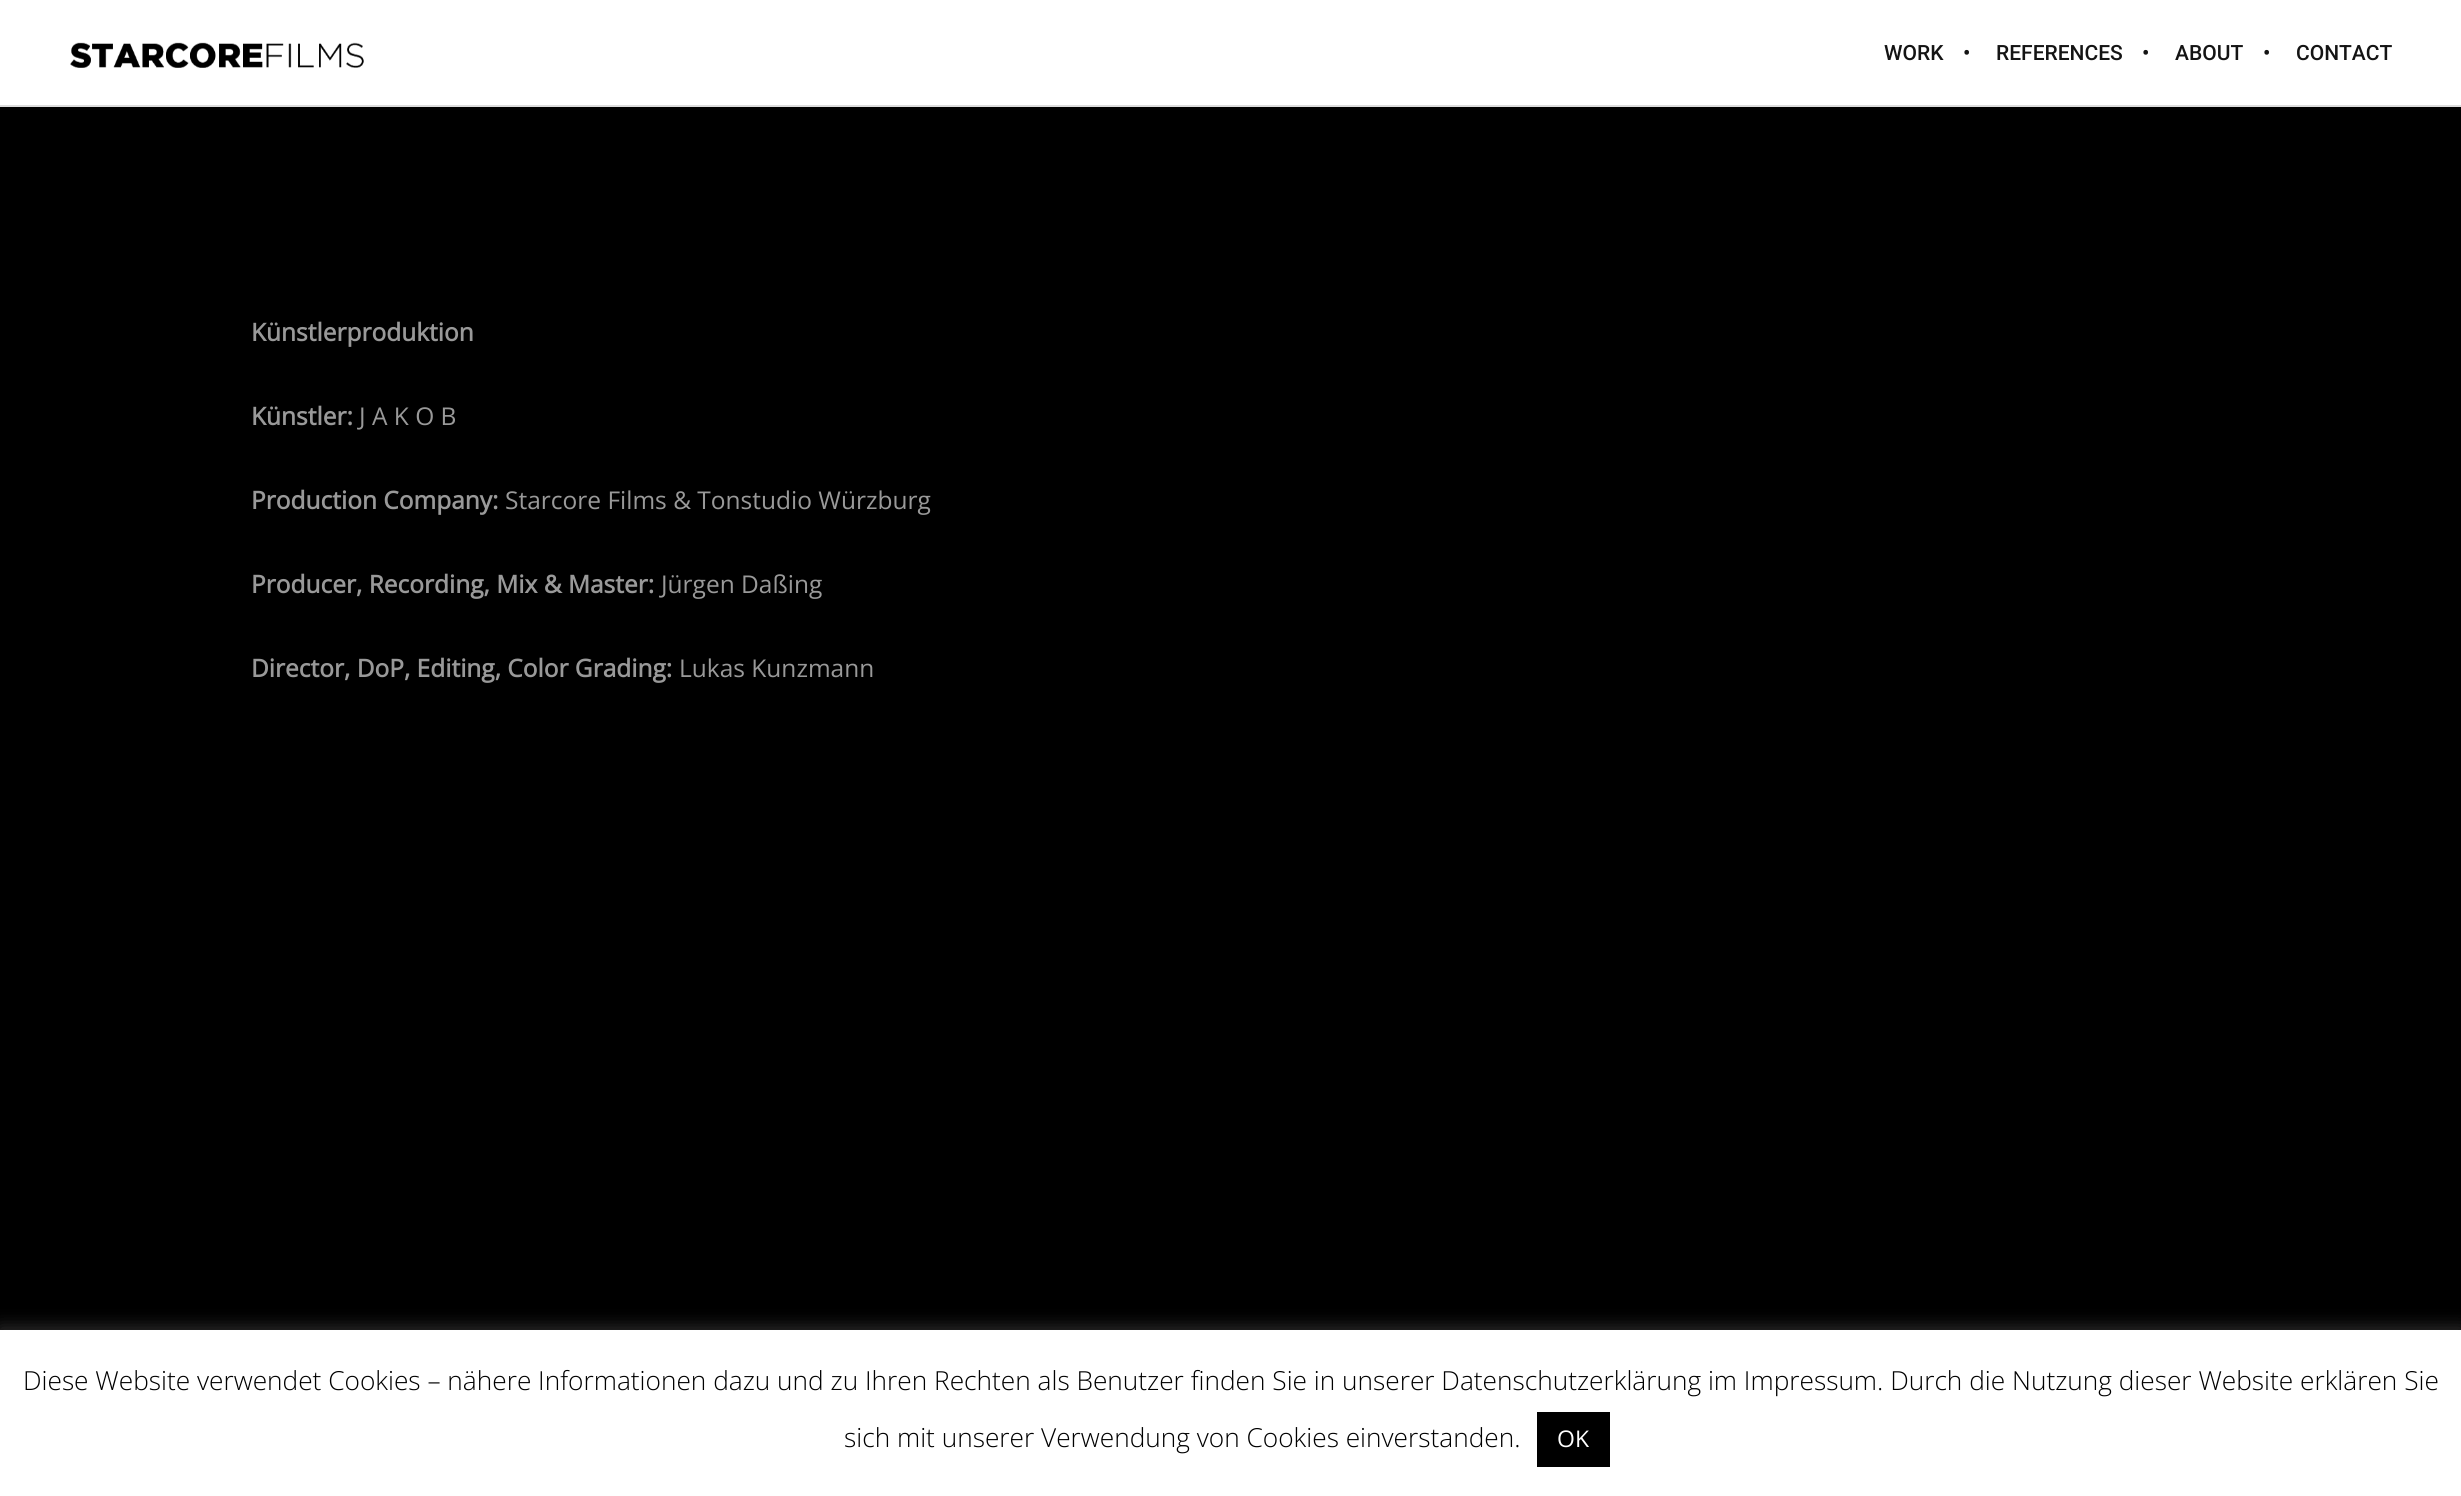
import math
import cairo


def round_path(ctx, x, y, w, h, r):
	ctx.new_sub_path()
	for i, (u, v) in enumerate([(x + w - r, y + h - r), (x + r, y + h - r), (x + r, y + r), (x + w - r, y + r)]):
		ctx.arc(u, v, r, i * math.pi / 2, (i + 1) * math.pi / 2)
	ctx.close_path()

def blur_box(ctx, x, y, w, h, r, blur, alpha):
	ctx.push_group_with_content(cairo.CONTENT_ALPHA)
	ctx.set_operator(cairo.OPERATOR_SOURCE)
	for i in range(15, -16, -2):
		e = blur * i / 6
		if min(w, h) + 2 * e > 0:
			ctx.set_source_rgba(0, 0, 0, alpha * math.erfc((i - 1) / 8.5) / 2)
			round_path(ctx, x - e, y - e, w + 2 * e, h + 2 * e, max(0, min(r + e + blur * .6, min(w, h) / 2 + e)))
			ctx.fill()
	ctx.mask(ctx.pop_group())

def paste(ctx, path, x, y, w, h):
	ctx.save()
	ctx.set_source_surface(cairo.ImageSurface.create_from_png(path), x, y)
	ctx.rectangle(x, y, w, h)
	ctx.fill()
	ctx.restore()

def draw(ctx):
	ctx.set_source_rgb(0, 0, 0)
	ctx.paint()
	ctx.set_source_rgb(1, 1, 1)
	ctx.rectangle(0, 0, 2461, 105)
	ctx.fill()
	ctx.set_source_rgb(0.867, 0.867, 0.867)
	ctx.rectangle(0, 105, 2461, 2)
	ctx.fill()
	paste(ctx, 'media/1.png', 70, 42, 294, 26)
	ctx.select_font_face('Roboto Medium')
	ctx.set_font_size(21)
	ctx.set_source_rgb(0.082, 0.082, 0.082)
	for x, y, s in [
		(1884, 60, 'WORK'),
		(1963, 60, '•'),
		(1996, 60, 'REFERENCES'),
		(2142, 60, '•'),
		(2175, 60, 'ABOUT'),
		(2263, 60, '•'),
		(2296, 60, 'CONTACT'),
	]:
		ctx.move_to(x, y)
		ctx.show_text(s)
	ctx.select_font_face('Open Sans', cairo.FONT_SLANT_NORMAL, cairo.FONT_WEIGHT_BOLD)
	ctx.set_font_size(24.5)
	ctx.set_source_rgb(0.6, 0.6, 0.6)
	ctx.move_to(251, 341)
	ctx.show_text('Künstlerproduktion')
	ctx.move_to(251, 425)
	ctx.show_text('Künstler:')
	ctx.select_font_face('Open Sans')
	ctx.move_to(359, 425)
	ctx.show_text('J A K O B')
	ctx.select_font_face('Open Sans', cairo.FONT_SLANT_NORMAL, cairo.FONT_WEIGHT_BOLD)
	ctx.move_to(251, 509)
	ctx.show_text('Production Company:')
	ctx.select_font_face('Open Sans')
	ctx.move_to(505, 509)
	ctx.show_text('Starcore Films & Tonstudio Würzburg')
	ctx.select_font_face('Open Sans', cairo.FONT_SLANT_NORMAL, cairo.FONT_WEIGHT_BOLD)
	ctx.move_to(251, 593)
	ctx.show_text('Producer, Recording, Mix & Master:')
	ctx.select_font_face('Open Sans')
	ctx.move_to(661, 593)
	ctx.show_text('Jürgen Daßing')
	ctx.select_font_face('Open Sans', cairo.FONT_SLANT_NORMAL, cairo.FONT_WEIGHT_BOLD)
	ctx.move_to(251, 677)
	ctx.show_text('Director, DoP, Editing, Color Grading:')
	ctx.select_font_face('Open Sans')
	ctx.move_to(679, 677)
	ctx.show_text('Lukas Kunzmann')
	ctx.set_source_rgb(0.675, 0.671, 0.671)
	blur_box(ctx, 0, 1328, 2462, 167, 0, 9, 0.3)
	ctx.set_source_rgb(1, 1, 1)
	ctx.rectangle(0, 1330, 2461, 166)
	ctx.fill()
	ctx.select_font_face('Open Sans Light')
	ctx.set_font_size(26.25)
	ctx.set_source_rgb(0, 0, 0)
	ctx.move_to(23, 1390)
	ctx.show_text('Diese Website verwendet Cookies – nähere Informationen dazu und zu Ihren Rechten als Benutzer finden Sie in unserer Datenschutzerklärung im Impressum. Durch die Nutzung dieser Website erklären Sie')
	ctx.move_to(844, 1447)
	ctx.show_text('sich mit unserer Verwendung von Cookies einverstanden.')
	ctx.rectangle(1537, 1412, 73, 55)
	ctx.fill()
	ctx.select_font_face('Open Sans')
	ctx.set_font_size(23)
	ctx.set_source_rgb(1, 1, 1)
	ctx.move_to(1557, 1447)
	ctx.show_text('OK')


surface = cairo.ImageSurface(cairo.FORMAT_RGB24, 2461, 1496)
ctx = cairo.Context(surface)
options = cairo.FontOptions()
options.set_hint_metrics(cairo.HINT_METRICS_OFF)
options.set_hint_style(cairo.HINT_STYLE_NONE)
ctx.set_font_options(options)
ctx.set_miter_limit(4)
draw(ctx)
surface.write_to_png('image.png')
